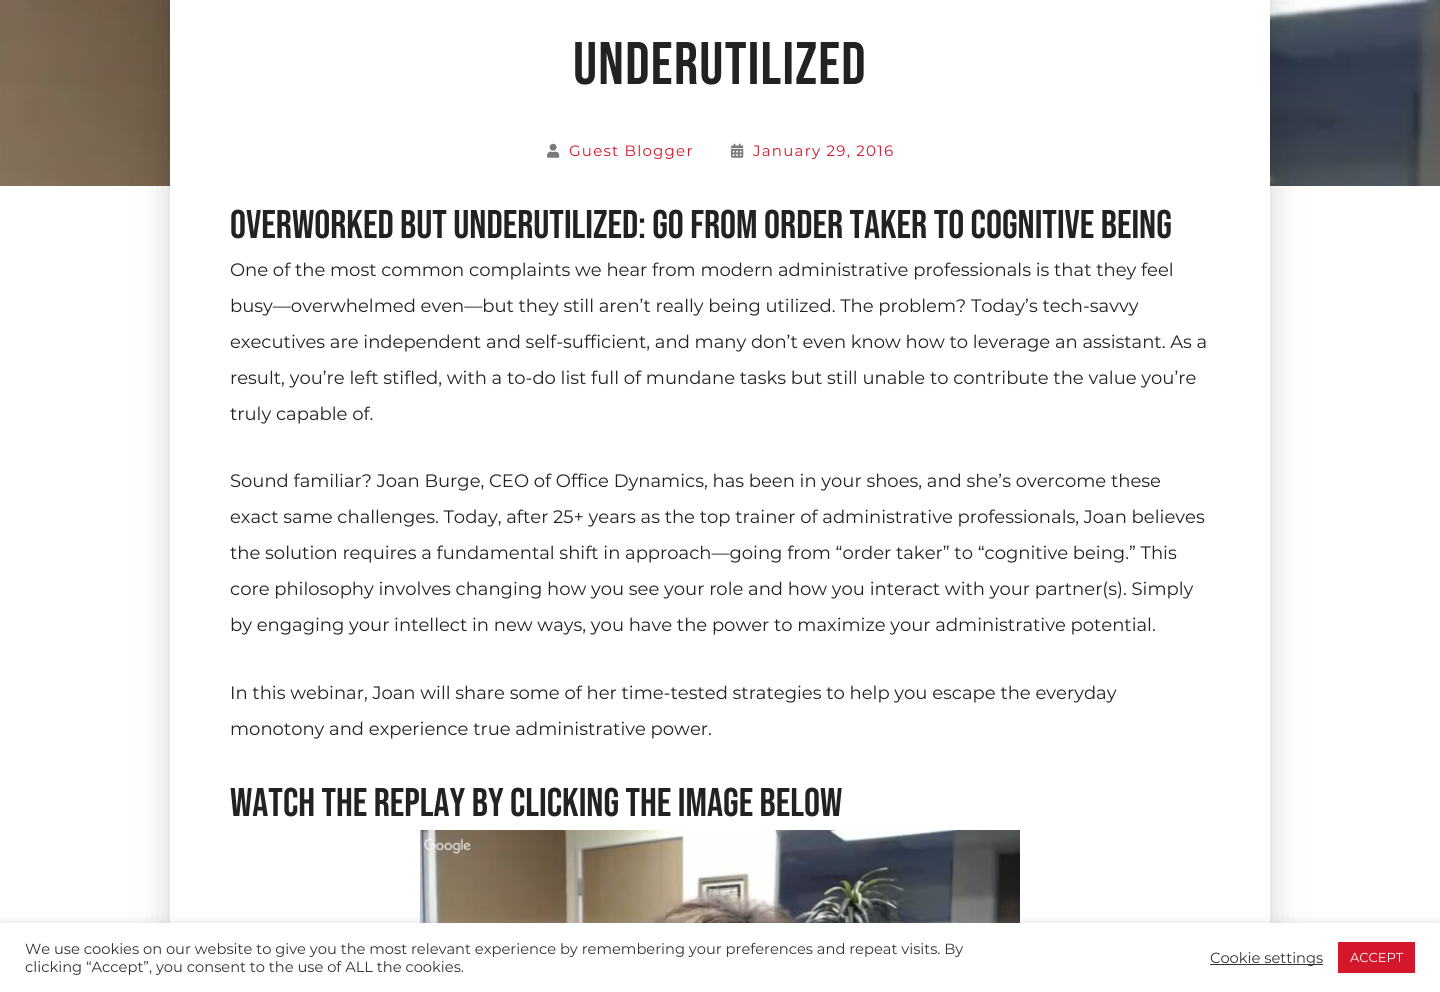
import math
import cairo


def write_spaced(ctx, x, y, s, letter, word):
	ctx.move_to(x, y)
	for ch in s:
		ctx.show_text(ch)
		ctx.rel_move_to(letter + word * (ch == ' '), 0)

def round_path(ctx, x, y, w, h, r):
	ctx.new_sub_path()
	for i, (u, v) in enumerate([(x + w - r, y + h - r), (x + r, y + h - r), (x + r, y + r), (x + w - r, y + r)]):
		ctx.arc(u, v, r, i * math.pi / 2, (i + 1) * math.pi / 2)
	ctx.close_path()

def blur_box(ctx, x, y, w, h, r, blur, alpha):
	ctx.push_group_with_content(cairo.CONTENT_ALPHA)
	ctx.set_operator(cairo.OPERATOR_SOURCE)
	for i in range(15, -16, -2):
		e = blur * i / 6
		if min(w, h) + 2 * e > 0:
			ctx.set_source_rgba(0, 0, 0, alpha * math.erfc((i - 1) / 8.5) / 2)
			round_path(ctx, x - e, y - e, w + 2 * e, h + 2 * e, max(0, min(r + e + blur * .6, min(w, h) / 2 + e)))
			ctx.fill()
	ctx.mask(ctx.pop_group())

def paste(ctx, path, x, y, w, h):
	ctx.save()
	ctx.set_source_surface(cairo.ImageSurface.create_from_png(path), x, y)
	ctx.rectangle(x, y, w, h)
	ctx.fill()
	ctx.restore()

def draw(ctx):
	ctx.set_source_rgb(1, 1, 1)
	ctx.paint()
	paste(ctx, 'media/1.png', 0, 0, 1440, 186)
	ctx.set_source_rgb(0, 0, 0)
	blur_box(ctx, 170, -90, 1100, 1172, 40, 16.5, 0.19)
	ctx.set_source_rgb(1, 1, 1)
	ctx.rectangle(170, 0, 1100, 923)
	ctx.fill()
	ctx.select_font_face('Bebas Neue')
	ctx.set_font_size(60)
	ctx.set_source_rgb(0.133, 0.133, 0.133)
	write_spaced(ctx, 573, 84, 'Underutilized', 1.25, 0)
	paste(ctx, 'media/2.png', 547, 143, 13, 15)
	ctx.select_font_face('Montserrat')
	ctx.set_font_size(15)
	ctx.set_source_rgb(0.835, 0.09, 0.169)
	write_spaced(ctx, 569, 156, 'Guest Blogger', 1.25, 0)
	paste(ctx, 'media/3.png', 731, 143, 13, 15)
	write_spaced(ctx, 753, 156, 'January 29, 2016', 1.25, 0)
	ctx.select_font_face('Bebas Neue')
	ctx.set_font_size(40)
	ctx.set_source_rgb(0.133, 0.133, 0.133)
	ctx.move_to(230, 238)
	ctx.show_text('Overworked but Underutilized: Go From Order Taker to Cognitive Being')
	ctx.select_font_face('Montserrat')
	ctx.set_font_size(18)
	for x, y, s in [
		(230, 276, 'One of the most common complaints we hear from modern administrative professionals is that they feel'),
		(230, 312, 'busy—overwhelmed even—but they still aren’t really being utilized. The problem? Today’s tech-savvy'),
		(230, 348, 'executives are independent and self-sufficient, and many don’t even know how to leverage an assistant. As a'),
		(230, 384, 'result, you’re left stifled, with a to-do list full of mundane tasks but still unable to contribute the value you’re'),
		(230, 420, 'truly capable of.'),
		(230, 487, 'Sound familiar? Joan Burge, CEO of Office Dynamics, has been in your shoes, and she’s overcome these'),
		(230, 523, 'exact same challenges. Today, after 25+ years as the top trainer of administrative professionals, Joan believes'),
		(230, 559, 'the solution requires a fundamental shift in approach—going from “order taker” to “cognitive being.” This'),
		(230, 595, 'core philosophy involves changing how you see your role and how you interact with your partner(s). Simply'),
		(230, 631, 'by engaging your intellect in new ways, you have the power to maximize your administrative potential.'),
		(230, 699, 'In this webinar, Joan will share some of her time-tested strategies to help you escape the everyday'),
		(230, 735, 'monotony and experience true administrative power.'),
	]:
		ctx.move_to(x, y)
		ctx.show_text(s)
	ctx.select_font_face('Bebas Neue')
	ctx.set_font_size(40)
	ctx.move_to(230, 816)
	ctx.show_text('Watch the Replay by Clicking the Image Below')
	paste(ctx, 'media/4.png', 420, 830, 600, 93)
	ctx.set_source_rgb(0.675, 0.671, 0.671)
	blur_box(ctx, 0, 922, 1440, 69, 0, 5, 0.3)
	ctx.set_source_rgb(1, 1, 1)
	ctx.rectangle(0, 923, 1440, 69)
	ctx.fill()
	ctx.select_font_face('Montserrat')
	ctx.set_font_size(14.67)
	ctx.set_source_rgb(0.2, 0.2, 0.2)
	ctx.move_to(25, 954)
	ctx.show_text('We use cookies on our website to give you the most relevant experience by remembering your preferences and repeat visits. By')
	ctx.move_to(25, 972)
	ctx.show_text('clicking “Accept”, you consent to the use of ALL the cookies.')
	ctx.rectangle(1210, 964, 113, 1)
	ctx.fill()
	ctx.move_to(1210, 963)
	ctx.show_text('Cookie settings')
	ctx.set_source_rgb(0.835, 0.09, 0.169)
	ctx.rectangle(1338, 942, 77, 31)
	ctx.fill()
	ctx.set_font_size(13)
	ctx.set_source_rgb(1, 1, 1)
	ctx.move_to(1350, 962)
	ctx.show_text('ACCEPT')


surface = cairo.ImageSurface(cairo.FORMAT_RGB24, 1440, 992)
ctx = cairo.Context(surface)
options = cairo.FontOptions()
options.set_hint_metrics(cairo.HINT_METRICS_OFF)
options.set_hint_style(cairo.HINT_STYLE_NONE)
ctx.set_font_options(options)
ctx.set_miter_limit(4)
draw(ctx)
surface.write_to_png('image.png')
